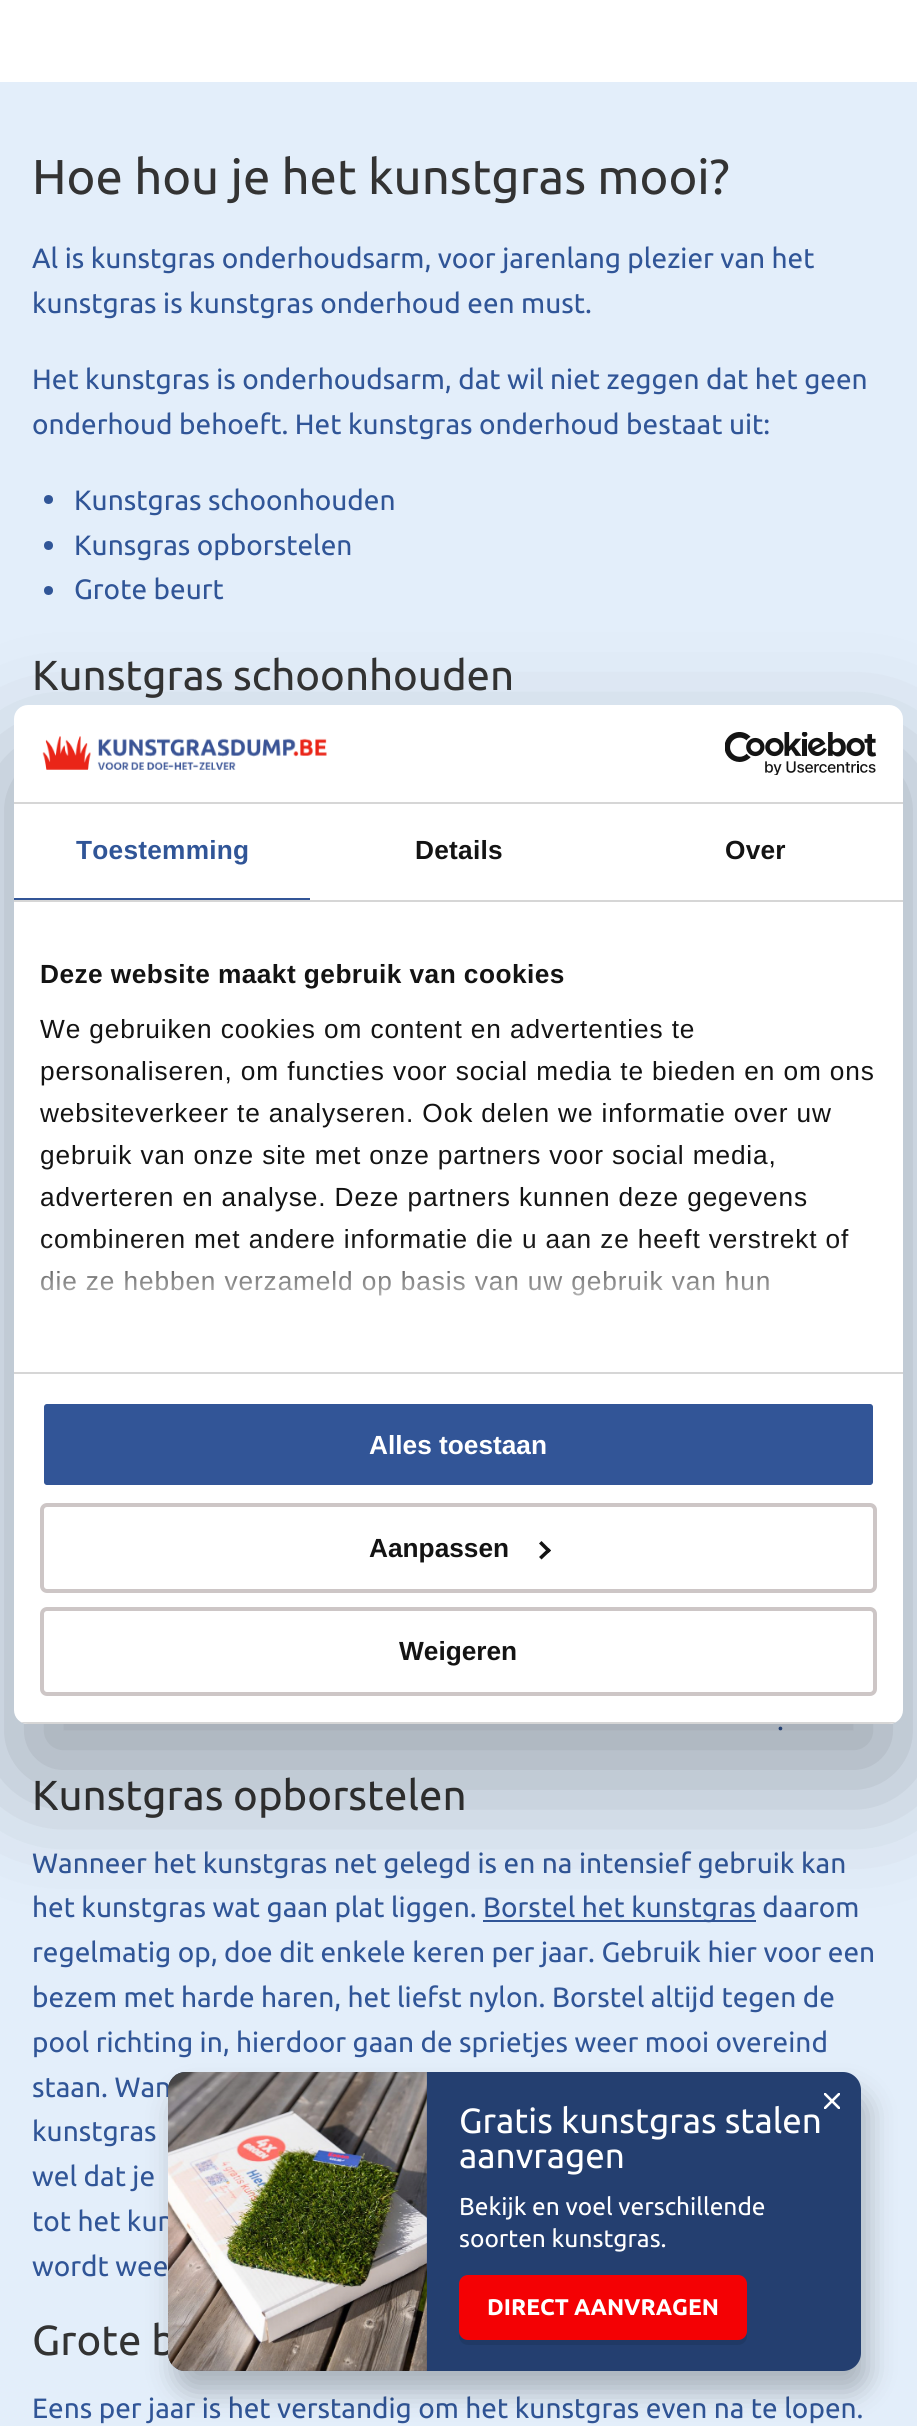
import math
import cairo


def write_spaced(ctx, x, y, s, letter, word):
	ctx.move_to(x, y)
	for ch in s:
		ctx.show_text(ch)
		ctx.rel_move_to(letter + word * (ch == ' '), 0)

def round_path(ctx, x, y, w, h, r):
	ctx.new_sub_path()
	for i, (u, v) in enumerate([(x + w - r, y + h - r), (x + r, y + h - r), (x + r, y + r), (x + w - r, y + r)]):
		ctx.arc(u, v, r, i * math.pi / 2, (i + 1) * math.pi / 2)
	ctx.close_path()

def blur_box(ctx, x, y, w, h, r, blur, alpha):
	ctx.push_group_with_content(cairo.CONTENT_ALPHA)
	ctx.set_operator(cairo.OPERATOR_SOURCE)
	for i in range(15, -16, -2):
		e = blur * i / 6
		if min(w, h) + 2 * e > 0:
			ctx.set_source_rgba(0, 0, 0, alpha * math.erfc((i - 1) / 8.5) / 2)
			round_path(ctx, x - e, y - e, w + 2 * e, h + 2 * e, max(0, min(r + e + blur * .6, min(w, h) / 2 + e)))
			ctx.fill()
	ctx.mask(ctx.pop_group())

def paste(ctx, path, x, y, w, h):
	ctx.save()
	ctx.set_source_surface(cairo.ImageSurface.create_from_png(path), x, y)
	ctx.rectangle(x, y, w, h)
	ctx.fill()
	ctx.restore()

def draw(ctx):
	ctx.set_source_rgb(0.89, 0.933, 0.98)
	ctx.paint()
	ctx.set_source_rgb(1, 1, 1)
	ctx.rectangle(0, 0, 917, 82)
	ctx.fill()
	ctx.select_font_face('Ubuntu')
	ctx.set_font_size(49)
	ctx.set_source_rgb(0.2, 0.2, 0.2)
	ctx.move_to(32, 194)
	ctx.show_text('Hoe hou je het kunstgras mooi?')
	ctx.set_font_size(28)
	ctx.set_source_rgb(0.188, 0.333, 0.592)
	for x, y, s in [
		(32, 268, 'Al is kunstgras onderhoudsarm, voor jarenlang plezier van het'),
		(32, 313, 'kunstgras is kunstgras onderhoud een must.'),
		(32, 389, 'Het kunstgras is onderhoudsarm, dat wil niet zeggen dat het geen'),
		(32, 434, 'onderhoud behoeft. Het kunstgras onderhoud bestaat uit:'),
	]:
		ctx.move_to(x, y)
		ctx.show_text(s)
	ctx.new_path()
	ctx.arc(48.5, 499.5, 4.5, 0, 2 * math.pi)
	ctx.fill()
	ctx.move_to(74, 510)
	ctx.show_text('Kunstgras schoonhouden')
	ctx.new_path()
	ctx.arc(48.5, 545.5, 4.5, 0, 2 * math.pi)
	ctx.fill()
	ctx.move_to(74, 555)
	ctx.show_text('Kunsgras opborstelen')
	ctx.new_path()
	ctx.arc(48.5, 590.5, 4.5, 0, 2 * math.pi)
	ctx.fill()
	ctx.move_to(74, 599)
	ctx.show_text('Grote beurt')
	ctx.set_font_size(42)
	ctx.set_source_rgb(0.2, 0.2, 0.2)
	ctx.move_to(32, 690)
	ctx.show_text('Kunstgras schoonhouden')
	ctx.set_font_size(28)
	ctx.set_source_rgb(0.188, 0.333, 0.592)
	ctx.move_to(777, 1730)
	ctx.show_text('.')
	ctx.set_font_size(42)
	ctx.set_source_rgb(0.2, 0.2, 0.2)
	ctx.move_to(32, 1810)
	ctx.show_text('Kunstgras opborstelen')
	ctx.set_font_size(28)
	ctx.set_source_rgb(0.188, 0.333, 0.592)
	ctx.move_to(32, 1873)
	ctx.show_text('Wanneer het kunstgras net gelegd is en na intensief gebruik kan')
	ctx.move_to(32, 1917)
	ctx.show_text('het kunstgras wat gaan plat liggen.')
	ctx.rectangle(483, 1920, 273, 2)
	ctx.fill()
	for x, y, s in [
		(483, 1917, 'Borstel het kunstgras daarom'),
		(32, 1962, 'regelmatig op, doe dit enkele keren per jaar. Gebruik hier voor een'),
		(32, 2007, 'bezem met harde haren, het liefst nylon. Borstel altijd tegen de'),
		(32, 2052, 'pool richting in, hierdoor gaan de sprietjes weer mooi overeind'),
		(32, 2097, 'staan. Wan'),
		(32, 2141, 'kunstgras'),
		(32, 2186, 'wel dat je'),
		(32, 2231, 'tot het kun'),
		(32, 2276, 'wordt wee'),
	]:
		ctx.move_to(x, y)
		ctx.show_text(s)
	ctx.set_font_size(42)
	ctx.set_source_rgb(0.2, 0.2, 0.2)
	ctx.move_to(32, 2355)
	ctx.show_text('Grote b')
	ctx.set_font_size(28)
	ctx.set_source_rgb(0.188, 0.333, 0.592)
	ctx.move_to(32, 2418)
	ctx.show_text('Eens per jaar is het verstandig om het kunstgras even na te lopen.')
	ctx.set_source_rgb(0, 0, 0)
	blur_box(ctx, 14, 761, 889, 1019, 14, 59.5, 0.3)
	ctx.set_source_rgb(1, 1, 1)
	round_path(ctx, 14, 705, 889, 1019, 14)
	ctx.fill()
	ctx.set_source_rgb(0.839, 0.839, 0.839)
	ctx.rectangle(14, 802, 889, 2)
	ctx.fill()
	paste(ctx, 'media/1.png', 42, 736, 285, 34)
	paste(ctx, 'media/2.png', 725, 732, 152, 43)
	ctx.rectangle(14, 900, 889, 2)
	ctx.fill()
	ctx.set_source_rgb(0.196, 0.333, 0.592)
	ctx.rectangle(14, 898, 296, 2)
	ctx.fill()
	ctx.select_font_face('Liberation Sans', cairo.FONT_SLANT_NORMAL, cairo.FONT_WEIGHT_BOLD)
	ctx.set_font_size(26.25)
	ctx.set_source_rgb(0.188, 0.333, 0.592)
	write_spaced(ctx, 76, 859, 'Toestemming', 0.25, 0)
	ctx.set_source_rgb(0.078, 0.078, 0.078)
	write_spaced(ctx, 415, 859, 'Details', 0.25, 0)
	write_spaced(ctx, 725, 859, 'Over', 0.25, 0)
	ctx.set_source_rgb(0.839, 0.839, 0.839)
	ctx.rectangle(14, 1372, 889, 2)
	ctx.fill()
	ctx.set_source_rgb(0.078, 0.078, 0.078)
	write_spaced(ctx, 40, 983, 'Deze website maakt gebruik van cookies', 0.45, 0)
	ctx.select_font_face('Liberation Sans')
	for x, y, s in [
		(40, 1038, 'We gebruiken cookies om content en advertenties te'),
		(40, 1080, 'personaliseren, om functies voor social media te bieden en om ons'),
		(40, 1122, 'websiteverkeer te analyseren. Ook delen we informatie over uw'),
		(40, 1164, 'gebruik van onze site met onze partners voor social media,'),
		(40, 1206, 'adverteren en analyse. Deze partners kunnen deze gegevens'),
		(40, 1248, 'combineren met andere informatie die u aan ze heeft verstrekt of'),
		(40, 1290, 'die ze hebben verzameld op basis van uw gebruik van hun'),
	]:
		write_spaced(ctx, x, y, s, 0.88, 0)
	gradient = cairo.LinearGradient(447, 1372, 447, 1241)
	gradient.add_color_stop_rgba(0, 1, 1, 1, 1)
	gradient.add_color_stop_rgba(0.5, 1, 1, 1, 0.8)
	gradient.add_color_stop_rgba(1, 1, 1, 1, 0)
	ctx.set_source(gradient)
	ctx.rectangle(41, 1243, 805, 53)
	ctx.fill()
	ctx.save()
	round_path(ctx, 14, 705, 889, 1019, 14)
	ctx.clip()
	ctx.set_source_rgb(0.839, 0.839, 0.839)
	ctx.rectangle(14, 1722, 889, 2)
	ctx.fill()
	ctx.restore()
	ctx.set_source_rgb(0.196, 0.333, 0.592)
	round_path(ctx, 42, 1402, 833, 85, 5)
	ctx.fill_preserve()
	ctx.set_source_rgb(1, 1, 1)
	ctx.set_line_width(4)
	ctx.stroke()
	ctx.select_font_face('Liberation Sans', cairo.FONT_SLANT_NORMAL, cairo.FONT_WEIGHT_BOLD)
	ctx.move_to(369, 1454)
	ctx.show_text('Alles toestaan')
	round_path(ctx, 42, 1505, 833, 86, 5)
	ctx.set_source_rgb(0.804, 0.776, 0.776)
	ctx.stroke()
	ctx.set_source_rgb(0.078, 0.078, 0.078)
	ctx.move_to(369, 1557)
	ctx.show_text('Aanpassen')
	ctx.new_path()
	ctx.move_to(541.5, 1541)
	ctx.line_to(551, 1550.5)
	ctx.line_to(548.5, 1553)
	ctx.line_to(539, 1543.5)
	ctx.close_path()
	ctx.fill()
	ctx.new_path()
	ctx.move_to(548.5, 1548)
	ctx.line_to(551, 1550.5)
	ctx.line_to(541.5, 1559.5)
	ctx.line_to(539, 1557)
	ctx.close_path()
	ctx.fill()
	round_path(ctx, 42, 1609, 833, 85, 5)
	ctx.set_source_rgb(0.804, 0.776, 0.776)
	ctx.stroke()
	ctx.set_source_rgb(0.078, 0.078, 0.078)
	ctx.move_to(399, 1660)
	ctx.show_text('Weigeren')
	ctx.set_source_rgb(0, 0, 0)
	blur_box(ctx, 175, 2093, 693, 299, 18, 14, 0.25)
	ctx.set_source_rgb(0.141, 0.247, 0.439)
	round_path(ctx, 168, 2072, 693, 299, 18)
	ctx.fill()
	ctx.save()
	ctx.rectangle(824, 2093, 16, 16)
	ctx.clip()
	ctx.new_path()
	ctx.move_to(825, 2108)
	ctx.line_to(839, 2094)
	ctx.move_to(825, 2094)
	ctx.line_to(839, 2108)
	ctx.set_source_rgb(1, 1, 1)
	ctx.set_line_width(2.6)
	ctx.set_line_cap(cairo.LINE_CAP_ROUND)
	ctx.stroke()
	ctx.restore()
	paste(ctx, 'media/3.png', 168, 2072, 259, 299)
	ctx.select_font_face('Ubuntu')
	ctx.set_font_size(35)
	ctx.set_source_rgb(1, 1, 1)
	ctx.move_to(459, 2133)
	ctx.show_text('Gratis kunstgras stalen')
	ctx.move_to(459, 2168)
	ctx.show_text('aanvragen')
	ctx.set_font_size(24.5)
	ctx.move_to(459, 2215)
	ctx.show_text('Bekijk en voel verschillende')
	ctx.move_to(459, 2247)
	ctx.show_text('soorten kunstgras.')
	ctx.set_source_rgb(0.125, 0.224, 0.396)
	ctx.new_path()
	ctx.move_to(459, 2334)
	ctx.line_to(459, 2336)
	ctx.curve_to(459, 2341, 463, 2345, 468, 2345)
	ctx.line_to(738, 2345)
	ctx.curve_to(743, 2345, 747, 2341, 747, 2336)
	ctx.line_to(747, 2333)
	ctx.curve_to(746, 2337, 743, 2340, 738, 2340)
	ctx.line_to(467, 2340)
	ctx.curve_to(463, 2340, 460, 2337, 459, 2334)
	ctx.close_path()
	ctx.fill()
	ctx.set_source_rgb(0.957, 0.004, 0.016)
	round_path(ctx, 459, 2275, 288, 65, 9)
	ctx.fill()
	ctx.select_font_face('Ubuntu', cairo.FONT_SLANT_NORMAL, cairo.FONT_WEIGHT_BOLD)
	ctx.set_font_size(22.75)
	ctx.set_source_rgb(1, 1, 1)
	ctx.move_to(487, 2315)
	ctx.show_text('DIRECT AANVRAGEN')


surface = cairo.ImageSurface(cairo.FORMAT_RGB24, 917, 2426)
ctx = cairo.Context(surface)
options = cairo.FontOptions()
options.set_hint_metrics(cairo.HINT_METRICS_OFF)
options.set_hint_style(cairo.HINT_STYLE_NONE)
ctx.set_font_options(options)
ctx.set_miter_limit(4)
draw(ctx)
surface.write_to_png('image.png')
